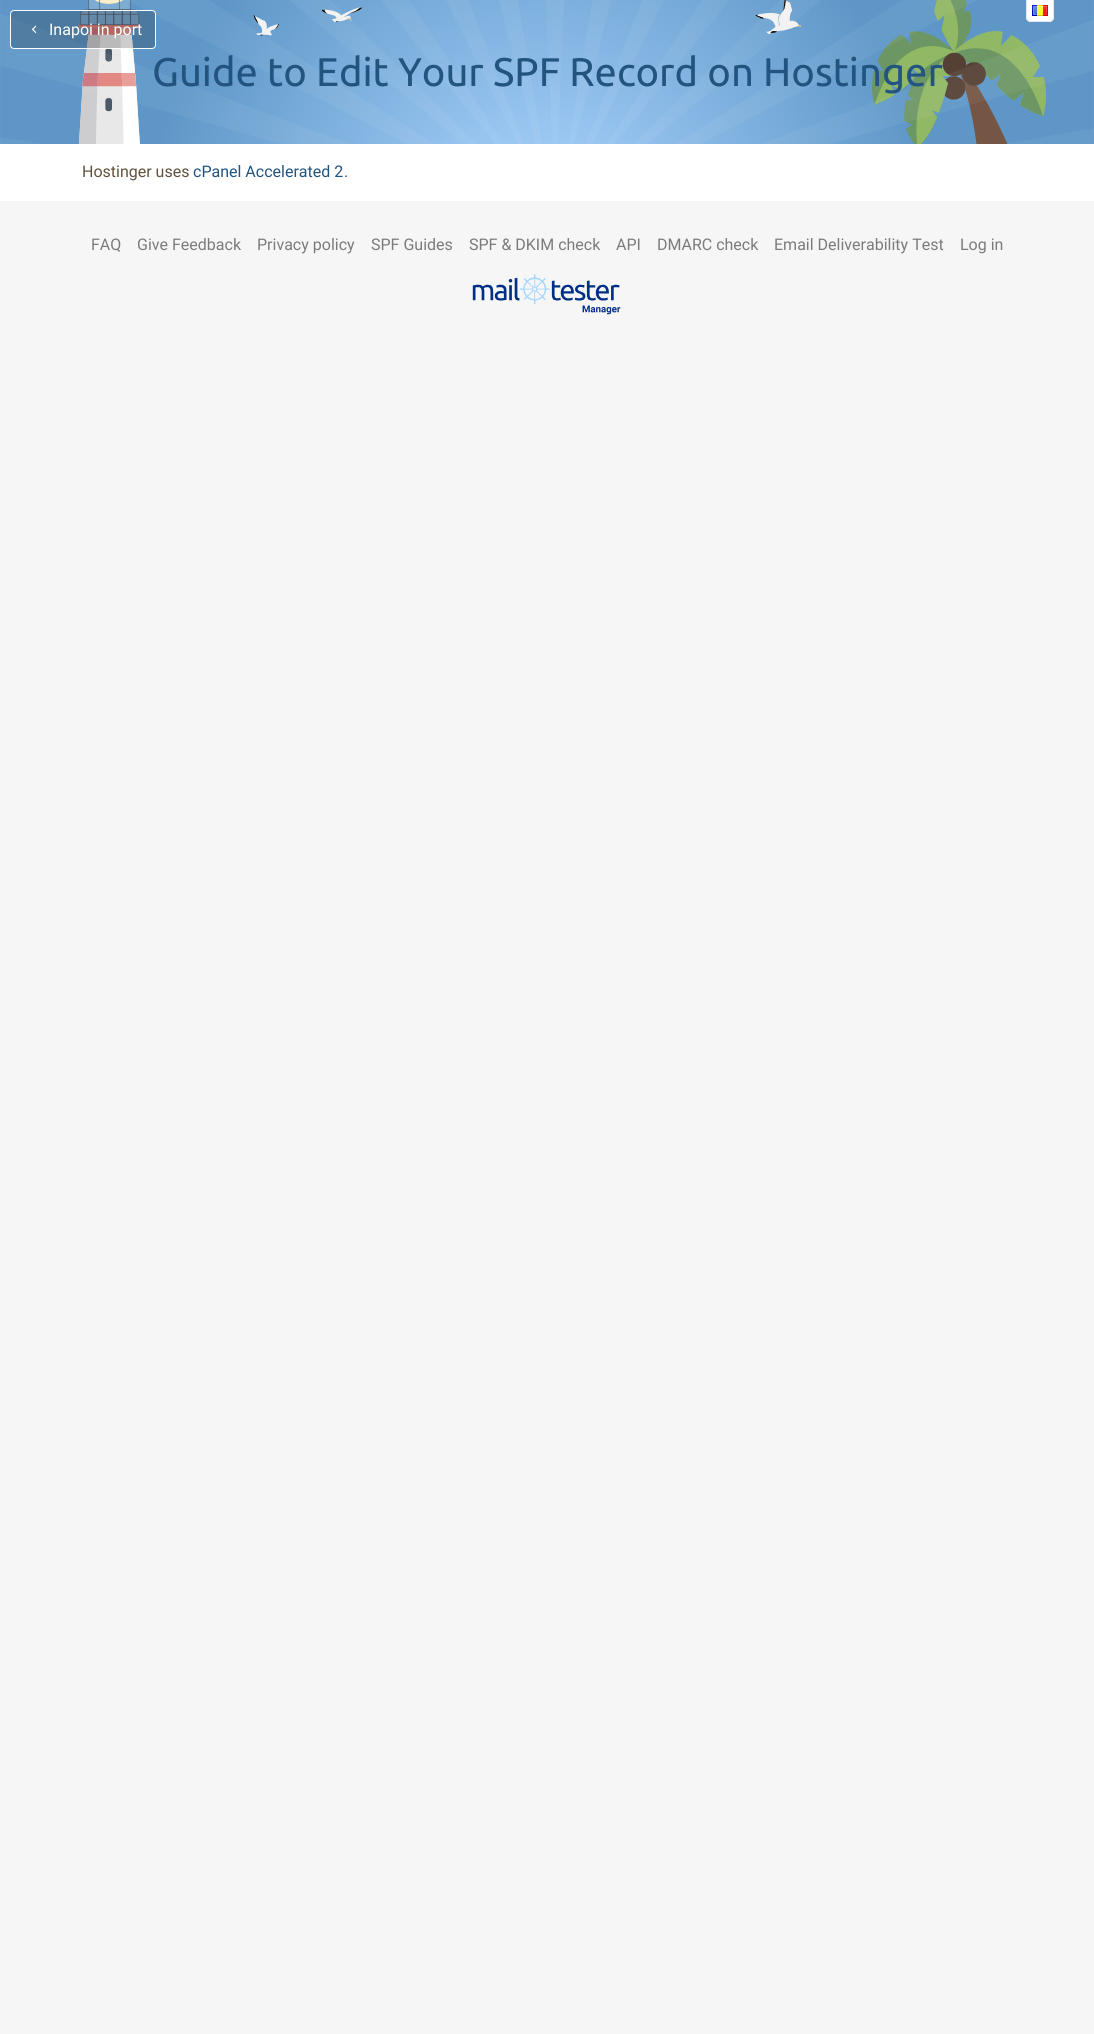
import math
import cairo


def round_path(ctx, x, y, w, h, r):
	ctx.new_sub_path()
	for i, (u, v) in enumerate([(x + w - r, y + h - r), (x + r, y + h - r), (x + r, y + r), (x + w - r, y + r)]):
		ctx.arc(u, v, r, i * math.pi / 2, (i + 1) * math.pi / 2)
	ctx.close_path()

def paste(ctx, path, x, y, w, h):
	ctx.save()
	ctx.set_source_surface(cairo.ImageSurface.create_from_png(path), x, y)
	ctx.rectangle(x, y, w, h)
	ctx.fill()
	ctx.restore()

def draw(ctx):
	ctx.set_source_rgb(0.961, 0.961, 0.961)
	ctx.paint()
	paste(ctx, 'media/2.png', 0, 0, 1094, 144)
	ctx.set_source_rgb(1, 1, 1)
	ctx.new_path()
	ctx.move_to(1026, 0)
	ctx.line_to(1054, 0)
	ctx.line_to(1054, 17)
	ctx.curve_to(1054, 20, 1052, 22, 1049, 22)
	ctx.line_to(1031, 22)
	ctx.curve_to(1028, 22, 1026, 20, 1026, 17)
	ctx.close_path()
	ctx.fill()
	ctx.set_source_rgb(0.902, 0.91, 0.918)
	ctx.set_fill_rule(cairo.FILL_RULE_EVEN_ODD)
	ctx.new_path()
	ctx.move_to(1026, 0)
	ctx.line_to(1054, 0)
	ctx.line_to(1054, 17)
	ctx.curve_to(1054, 20, 1052, 22, 1049, 22)
	ctx.line_to(1031, 22)
	ctx.curve_to(1028, 22, 1026, 20, 1026, 17)
	ctx.close_path()
	ctx.move_to(1027, 0)
	ctx.line_to(1053, 0)
	ctx.line_to(1053, 17)
	ctx.curve_to(1053, 19, 1051, 21, 1049, 21)
	ctx.line_to(1031, 21)
	ctx.curve_to(1029, 21, 1027, 19, 1027, 17)
	ctx.close_path()
	ctx.fill()
	paste(ctx, 'media/1.png', 1032, 5, 16, 11)
	ctx.set_source_rgba(0, 0, 0, 0.2)
	round_path(ctx, 10.5, 10.5, 145, 38, 3.5)
	ctx.fill_preserve()
	ctx.set_source_rgb(1, 1, 1)
	ctx.set_line_width(1)
	ctx.stroke()
	paste(ctx, 'media/3.png', 32, 25, 5, 8)
	ctx.select_font_face('Roboto')
	ctx.set_font_size(16)
	ctx.move_to(49, 35)
	ctx.show_text('Inapoi in port')
	ctx.select_font_face('Ubuntu')
	ctx.set_font_size(40)
	ctx.set_source_rgb(0.137, 0.329, 0.502)
	ctx.move_to(152, 86)
	ctx.show_text('Guide to Edit Your SPF Record on Hostinger')
	ctx.set_source_rgb(1, 1, 1)
	ctx.rectangle(0, 144, 1094, 57)
	ctx.fill()
	ctx.select_font_face('Roboto')
	ctx.set_font_size(16)
	ctx.set_source_rgb(0.38, 0.322, 0.227)
	ctx.move_to(82, 177)
	ctx.show_text('Hostinger uses')
	ctx.set_source_rgb(0.137, 0.329, 0.502)
	ctx.move_to(193, 177)
	ctx.show_text('cPanel Accelerated 2')
	ctx.set_source_rgb(0.38, 0.322, 0.227)
	ctx.move_to(344, 177)
	ctx.show_text('.')
	ctx.set_source_rgb(0.482, 0.482, 0.482)
	for x, y, s in [
		(91, 250, 'FAQ'),
		(137, 250, 'Give Feedback'),
		(257, 250, 'Privacy policy'),
		(371, 250, 'SPF Guides'),
		(469, 250, 'SPF & DKIM check'),
		(616, 250, 'API'),
		(657, 250, 'DMARC check'),
		(774, 250, 'Email Deliverability Test'),
		(960, 250, 'Log in'),
	]:
		ctx.move_to(x, y)
		ctx.show_text(s)
	paste(ctx, 'media/4.png', 472, 274, 149, 41)


surface = cairo.ImageSurface(cairo.FORMAT_RGB24, 1094, 2034)
ctx = cairo.Context(surface)
options = cairo.FontOptions()
options.set_hint_metrics(cairo.HINT_METRICS_OFF)
options.set_hint_style(cairo.HINT_STYLE_NONE)
ctx.set_font_options(options)
ctx.set_miter_limit(4)
draw(ctx)
surface.write_to_png('image.png')
